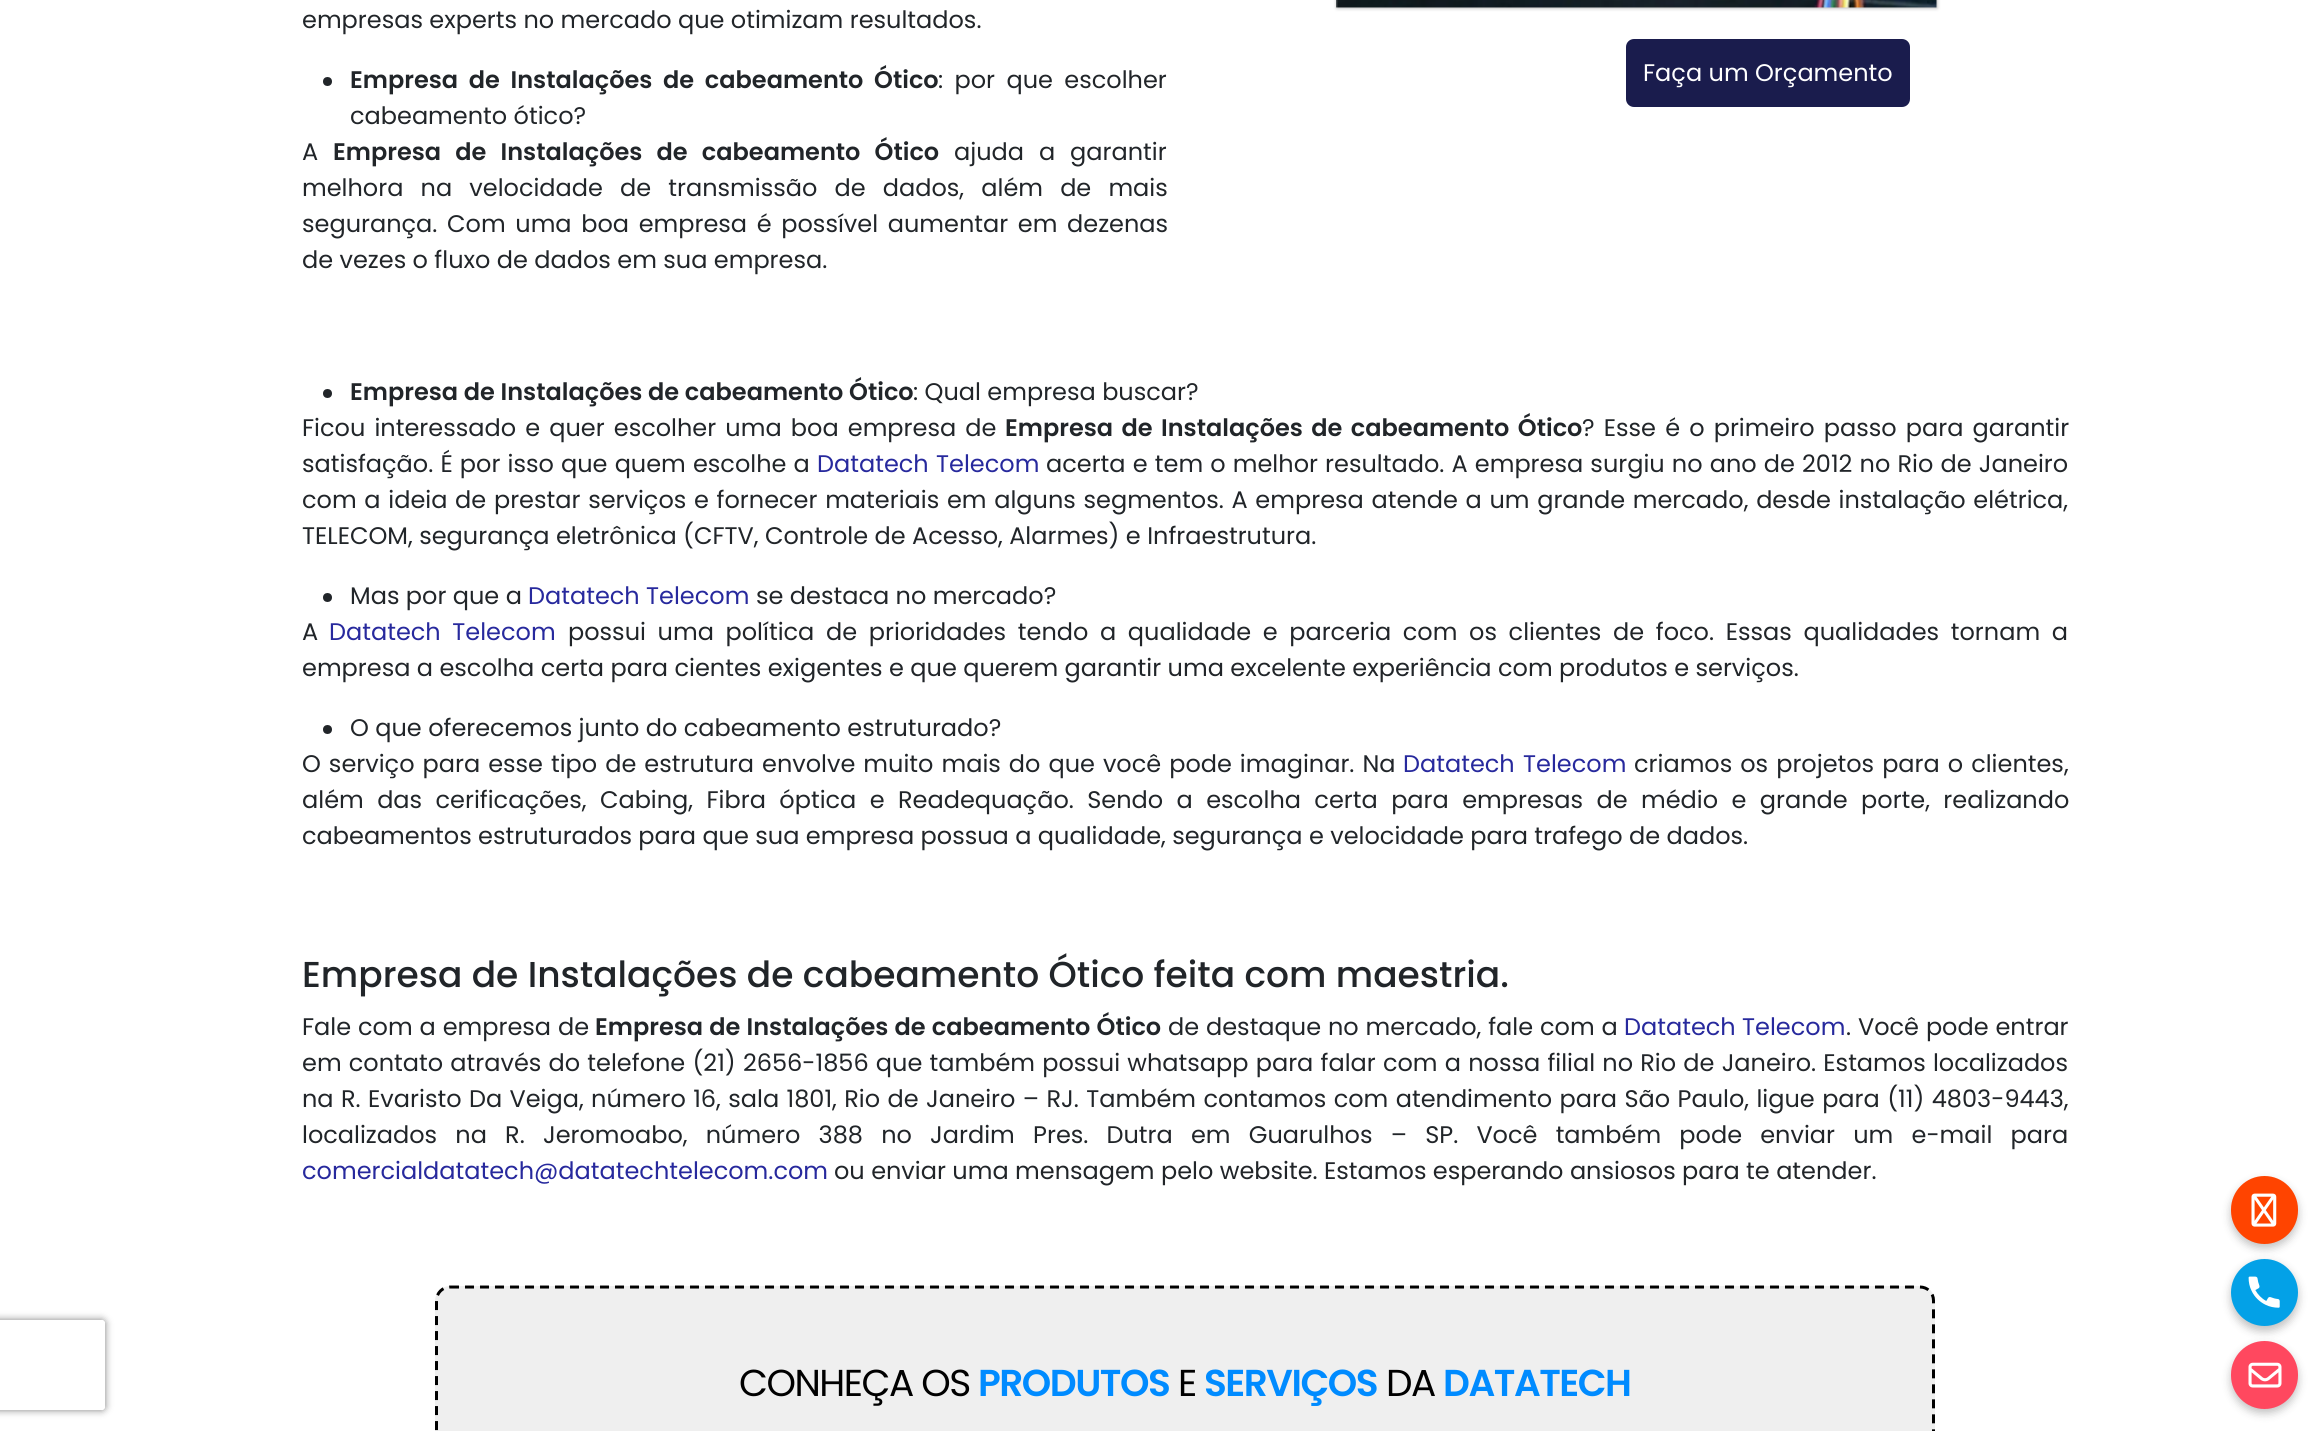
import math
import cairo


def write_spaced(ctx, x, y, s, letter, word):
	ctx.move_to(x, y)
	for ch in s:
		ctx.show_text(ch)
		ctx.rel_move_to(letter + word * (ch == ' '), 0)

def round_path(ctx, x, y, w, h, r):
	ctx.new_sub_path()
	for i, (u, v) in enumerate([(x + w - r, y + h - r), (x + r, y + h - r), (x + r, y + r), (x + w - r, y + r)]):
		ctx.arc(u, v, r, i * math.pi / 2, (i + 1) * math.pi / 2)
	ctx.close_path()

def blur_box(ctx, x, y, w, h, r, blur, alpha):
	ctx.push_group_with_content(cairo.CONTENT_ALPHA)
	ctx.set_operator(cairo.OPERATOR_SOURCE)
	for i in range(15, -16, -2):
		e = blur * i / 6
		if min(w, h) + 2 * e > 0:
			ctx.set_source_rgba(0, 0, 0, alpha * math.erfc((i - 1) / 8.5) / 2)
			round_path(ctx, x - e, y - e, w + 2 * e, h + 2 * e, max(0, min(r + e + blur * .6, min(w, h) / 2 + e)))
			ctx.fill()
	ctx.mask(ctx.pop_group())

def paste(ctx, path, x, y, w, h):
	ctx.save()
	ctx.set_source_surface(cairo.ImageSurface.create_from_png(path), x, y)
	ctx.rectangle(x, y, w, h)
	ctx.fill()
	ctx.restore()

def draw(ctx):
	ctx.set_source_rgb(1, 1, 1)
	ctx.paint()
	ctx.save()
	ctx.set_fill_rule(cairo.FILL_RULE_EVEN_ODD)
	ctx.new_path()
	ctx.move_to(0, 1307)
	ctx.line_to(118, 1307)
	ctx.line_to(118, 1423)
	ctx.line_to(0, 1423)
	ctx.close_path()
	ctx.move_to(-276, 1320)
	ctx.line_to(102, 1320)
	ctx.curve_to(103.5, 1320, 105, 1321.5, 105, 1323)
	ctx.line_to(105, 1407)
	ctx.curve_to(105, 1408.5, 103.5, 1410, 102, 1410)
	ctx.line_to(-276, 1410)
	ctx.curve_to(-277.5, 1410, -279, 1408.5, -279, 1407)
	ctx.line_to(-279, 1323)
	ctx.curve_to(-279, 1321.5, -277.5, 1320, -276, 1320)
	ctx.close_path()
	ctx.clip()
	ctx.set_source_rgb(0.502, 0.502, 0.502)
	blur_box(ctx, -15, 1320, 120, 90, 3, 4, 1)
	ctx.restore()
	ctx.select_font_face('Poppins')
	ctx.set_font_size(24)
	ctx.set_source_rgb(0.129, 0.145, 0.161)
	ctx.move_to(302, 28)
	ctx.show_text('empresas experts no mercado que otimizam resultados.')
	ctx.new_path()
	ctx.arc(327.5, 81.5, 4.5, 0, 2 * math.pi)
	ctx.fill()
	ctx.select_font_face('Poppins SemiBold')
	write_spaced(ctx, 350, 88, 'Empresa de Instalações de cabeamento Ótico', 0, 5)
	ctx.select_font_face('Poppins')
	write_spaced(ctx, 938, 88, ': por que escolher', 0, 5)
	ctx.move_to(350, 124)
	ctx.show_text('cabeamento ótico?')
	ctx.move_to(302, 160)
	ctx.show_text('A')
	ctx.select_font_face('Poppins SemiBold')
	write_spaced(ctx, 333, 160, 'Empresa de Instalações de cabeamento Ótico', 0, 8.5)
	ctx.select_font_face('Poppins')
	write_spaced(ctx, 954, 160, 'ajuda a garantir', 0, 8.5)
	write_spaced(ctx, 302, 196, 'melhora na velocidade de transmissão de dados, além de mais', 0, 10.75)
	write_spaced(ctx, 302, 232, 'segurança. Com uma boa empresa é possível aumentar em dezenas', 0, 3.25)
	ctx.move_to(302, 268)
	ctx.show_text('de vezes o fluxo de dados em sua empresa.')
	ctx.set_source_rgb(0, 0, 0)
	blur_box(ctx, 1337, -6, 600, 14, 0, 2, 0.32)
	paste(ctx, 'media/1.png', 1336, 0, 601, 8)
	ctx.set_source_rgb(0.102, 0.11, 0.302)
	round_path(ctx, 1627, 40, 282, 66, 7)
	ctx.fill_preserve()
	ctx.stroke()
	ctx.set_source_rgb(1, 1, 1)
	ctx.move_to(1643, 81)
	ctx.show_text('Faça um Orçamento')
	ctx.set_source_rgb(0.129, 0.145, 0.161)
	ctx.new_path()
	ctx.arc(327.5, 393.5, 4.5, 0, 2 * math.pi)
	ctx.fill()
	ctx.select_font_face('Poppins SemiBold')
	ctx.move_to(350, 400)
	ctx.show_text('Empresa de Instalações de cabeamento Ótico')
	ctx.select_font_face('Poppins')
	ctx.move_to(913, 400)
	ctx.show_text(': Qual empresa buscar?')
	write_spaced(ctx, 302, 436, 'Ficou interessado e quer escolher uma boa empresa de', 0, 2.75)
	ctx.select_font_face('Poppins SemiBold')
	write_spaced(ctx, 1005, 436, 'Empresa de Instalações de cabeamento Ótico', 0, 2.75)
	ctx.select_font_face('Poppins')
	write_spaced(ctx, 1582, 436, '? Esse é o primeiro passo para garantir', 0, 2.75)
	write_spaced(ctx, 302, 472, 'satisfação. É por isso que quem escolhe a', 0, 0.75)
	ctx.set_source_rgb(0.153, 0.161, 0.616)
	write_spaced(ctx, 817, 472, 'Datatech Telecom', 0, 1)
	ctx.set_source_rgb(0.129, 0.145, 0.161)
	write_spaced(ctx, 1046, 472, 'acerta e tem o melhor resultado. A empresa surgiu no ano de 2012 no Rio de Janeiro', 0, 0.75)
	write_spaced(ctx, 302, 508, 'com a ideia de prestar serviços e fornecer materiais em alguns segmentos. A empresa atende a um grande mercado, desde instalação elétrica,', 0, 1.3)
	ctx.move_to(302, 544)
	ctx.show_text('TELECOM, segurança eletrônica (CFTV, Controle de Acesso, Alarmes) e Infraestrutura.')
	ctx.new_path()
	ctx.arc(327.5, 597.5, 4.5, 0, 2 * math.pi)
	ctx.fill()
	ctx.move_to(350, 604)
	ctx.show_text('Mas por que a')
	ctx.set_source_rgb(0.153, 0.161, 0.616)
	ctx.move_to(528, 604)
	ctx.show_text('Datatech Telecom')
	ctx.set_source_rgb(0.129, 0.145, 0.161)
	ctx.move_to(756, 604)
	ctx.show_text('se destaca no mercado?')
	ctx.move_to(302, 640)
	ctx.show_text('A')
	ctx.set_source_rgb(0.153, 0.161, 0.616)
	write_spaced(ctx, 329, 640, 'Datatech Telecom', 0, 5.25)
	ctx.set_source_rgb(0.129, 0.145, 0.161)
	write_spaced(ctx, 568, 640, 'possui uma política de prioridades tendo a qualidade e parceria com os clientes de foco. Essas qualidades tornam a', 0, 5.25)
	ctx.move_to(302, 676)
	ctx.show_text('empresa a escolha certa para cientes exigentes e que querem garantir uma excelente experiência com produtos e serviços.')
	ctx.new_path()
	ctx.arc(327.5, 729.5, 4.5, 0, 2 * math.pi)
	ctx.fill()
	ctx.move_to(350, 736)
	ctx.show_text('O que oferecemos junto do cabeamento estruturado?')
	write_spaced(ctx, 302, 772, 'O serviço para esse tipo de estrutura envolve muito mais do que você pode imaginar. Na', 0, 1.6)
	ctx.set_source_rgb(0.153, 0.161, 0.616)
	write_spaced(ctx, 1403, 772, 'Datatech Telecom', 0, 2)
	ctx.set_source_rgb(0.129, 0.145, 0.161)
	write_spaced(ctx, 1634, 772, 'criamos os projetos para o clientes,', 0, 1.6)
	write_spaced(ctx, 302, 808, 'além das cerificações, Cabing, Fibra óptica e Readequação. Sendo a escolha certa para empresas de médio e grande porte, realizando', 0, 7)
	ctx.move_to(302, 844)
	ctx.show_text('cabeamentos estruturados para que sua empresa possua a qualidade, segurança e velocidade para trafego de dados.')
	ctx.select_font_face('Poppins Medium')
	ctx.set_font_size(36)
	ctx.move_to(302, 987)
	ctx.show_text('Empresa de Instalações de cabeamento Ótico feita com maestria.')
	ctx.select_font_face('Poppins')
	ctx.set_font_size(24)
	write_spaced(ctx, 302, 1035, 'Fale com a empresa de', 0, 0.5)
	ctx.select_font_face('Poppins SemiBold')
	write_spaced(ctx, 595, 1035, 'Empresa de Instalações de cabeamento Ótico', 0, 0.5)
	ctx.select_font_face('Poppins')
	write_spaced(ctx, 1168, 1035, 'de destaque no mercado, fale com a', 0, 0.5)
	ctx.set_source_rgb(0.153, 0.161, 0.616)
	ctx.move_to(1624, 1035)
	ctx.show_text('Datatech Telecom')
	ctx.set_source_rgb(0.129, 0.145, 0.161)
	write_spaced(ctx, 1846, 1035, '. Você pode entrar', 0, 0.5)
	write_spaced(ctx, 302, 1071, 'em contato através do telefone (21) 2656-1856 que também possui whatsapp para falar com a nossa filial no Rio de Janeiro. Estamos localizados', 0, 0.8)
	write_spaced(ctx, 302, 1107, 'na R. Evaristo Da Veiga, número 16, sala 1801, Rio de Janeiro – RJ. Também contamos com atendimento para São Paulo, ligue para (11) 4803-9443,', 0, 1)
	write_spaced(ctx, 302, 1143, 'localizados na R. Jeromoabo, número 388 no Jardim Pres. Dutra em Guarulhos – SP. Você também pode enviar um e-mail para', 0, 11.8)
	ctx.set_source_rgb(0.153, 0.161, 0.616)
	ctx.move_to(302, 1179)
	ctx.show_text('comercialdatatech@datatechtelecom.com')
	ctx.set_source_rgb(0.129, 0.145, 0.161)
	ctx.move_to(834, 1179)
	ctx.show_text('ou enviar uma mensagem pelo website. Estamos esperando ansiosos para te atender.')
	ctx.set_source_rgb(0.937, 0.937, 0.937)
	round_path(ctx, 435, 1286, 1500, 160, 15)
	ctx.fill()
	ctx.new_path()
	ctx.move_to(450, 1287)
	ctx.line_to(1920, 1287)
	ctx.curve_to(1927.5, 1287, 1933.5, 1293, 1933.5, 1300.5)
	ctx.line_to(1933.5, 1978.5)
	ctx.curve_to(1933.5, 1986, 1927.5, 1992, 1920, 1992)
	ctx.line_to(450, 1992)
	ctx.curve_to(442.5, 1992, 436.5, 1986, 436.5, 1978.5)
	ctx.line_to(436.5, 1300.5)
	ctx.curve_to(436.5, 1293, 442.5, 1287, 450, 1287)
	ctx.close_path()
	ctx.set_source_rgb(0, 0, 0)
	ctx.set_line_width(3)
	ctx.set_dash([9, 6])
	ctx.stroke()
	ctx.set_font_size(37.5)
	write_spaced(ctx, 739, 1396, 'CONHEÇA OS', -1.5, 0)
	ctx.select_font_face('Poppins SemiBold')
	ctx.set_source_rgb(0, 0.545, 1)
	write_spaced(ctx, 978, 1396, 'PRODUTOS', -1.5, 0)
	ctx.select_font_face('Poppins')
	ctx.set_source_rgb(0, 0, 0)
	write_spaced(ctx, 1178, 1396, 'E', -1.5, 0)
	ctx.select_font_face('Poppins SemiBold')
	ctx.set_source_rgb(0, 0.545, 1)
	write_spaced(ctx, 1204, 1396, 'SERVIÇOS', -1.5, 0)
	ctx.select_font_face('Poppins')
	ctx.set_source_rgb(0, 0, 0)
	write_spaced(ctx, 1386, 1396, 'DA', -1.5, 0)
	ctx.select_font_face('Poppins SemiBold')
	ctx.set_source_rgb(0, 0.545, 1)
	write_spaced(ctx, 1443, 1396, 'DATATECH', -1.5, 0)
	ctx.set_source_rgb(0, 0, 0)
	blur_box(ctx, 2231, 1181, 67, 67, 33.5, 4.5, 0.25)
	ctx.set_source_rgb(1, 0.267, 0)
	round_path(ctx, 2231, 1176, 67, 68, 33.5)
	ctx.fill()
	paste(ctx, 'media/2.png', 2251, 1193, 26, 34)
	ctx.set_source_rgb(0, 0, 0)
	blur_box(ctx, 2231, 1263, 67, 68, 33.5, 4.5, 0.25)
	ctx.set_source_rgb(0.012, 0.631, 0.906)
	ctx.arc(2264.5, 1292.5, 33.5, 0, 2 * math.pi)
	ctx.fill()
	paste(ctx, 'media/3.png', 2248, 1276, 32, 32)
	ctx.set_source_rgb(0, 0, 0)
	blur_box(ctx, 2231, 1346, 67, 67, 33.5, 4.5, 0.25)
	ctx.set_source_rgb(1, 0.282, 0.373)
	round_path(ctx, 2231, 1341, 67, 68, 33.5)
	ctx.fill()
	paste(ctx, 'media/4.png', 2248, 1362, 34, 26)


surface = cairo.ImageSurface(cairo.FORMAT_RGB24, 2313, 1431)
ctx = cairo.Context(surface)
options = cairo.FontOptions()
options.set_hint_metrics(cairo.HINT_METRICS_OFF)
options.set_hint_style(cairo.HINT_STYLE_NONE)
ctx.set_font_options(options)
ctx.set_miter_limit(4)
draw(ctx)
surface.write_to_png('image.png')
